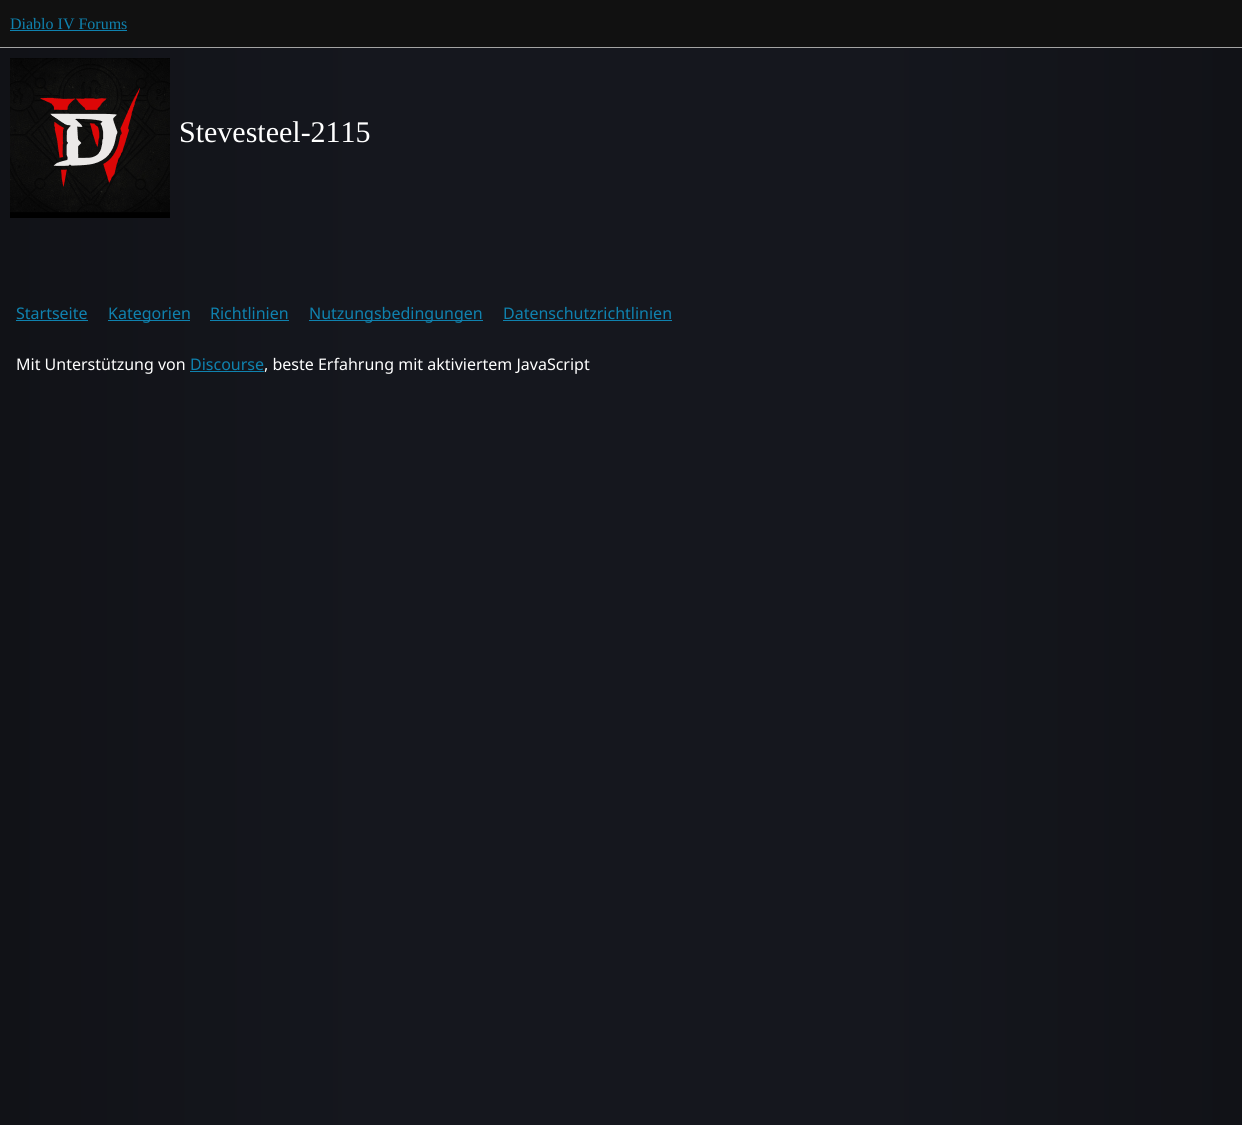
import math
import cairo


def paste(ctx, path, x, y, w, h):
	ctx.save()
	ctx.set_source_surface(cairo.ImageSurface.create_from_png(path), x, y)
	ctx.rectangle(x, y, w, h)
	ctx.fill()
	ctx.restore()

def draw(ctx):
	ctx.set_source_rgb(1, 1, 1)
	ctx.paint()
	gradient = cairo.LinearGradient(0, 563, 1242, 563)
	gradient.add_color_stop_rgba(0, 0.067, 0.071, 0.09, 1)
	gradient.add_color_stop_rgba(0.3, 0.082, 0.09, 0.118, 1)
	gradient.add_color_stop_rgba(0.7, 0.082, 0.09, 0.118, 1)
	gradient.add_color_stop_rgba(1, 0.067, 0.071, 0.09, 1)
	ctx.set_source(gradient)
	ctx.rectangle(0, 48, 1242, 1077)
	ctx.fill()
	ctx.set_source_rgb(0.067, 0.067, 0.067)
	ctx.rectangle(0, 0, 1242, 47)
	ctx.fill()
	ctx.set_source_rgb(0.643, 0.643, 0.643)
	ctx.rectangle(0, 47, 1242, 1)
	ctx.fill()
	ctx.select_font_face('Liberation Serif')
	ctx.set_font_size(16)
	ctx.set_source_rgb(0.059, 0.51, 0.686)
	ctx.move_to(10, 29)
	ctx.show_text('Diablo IV Forums')
	ctx.rectangle(10, 30, 117, 1)
	ctx.fill()
	paste(ctx, 'media/1.png', 10, 58, 160, 160)
	ctx.set_font_size(30)
	ctx.set_source_rgb(1, 1, 1)
	ctx.move_to(179, 142)
	ctx.show_text('Stevesteel-2115')
	ctx.select_font_face('Noto Sans')
	ctx.set_font_size(16)
	ctx.set_source_rgb(0.059, 0.51, 0.686)
	ctx.move_to(16, 319)
	ctx.show_text('Startseite')
	ctx.rectangle(16, 320, 72, 1)
	ctx.fill()
	ctx.rectangle(108, 320, 82, 1)
	ctx.fill()
	ctx.move_to(108, 319)
	ctx.show_text('Kategorien')
	ctx.move_to(210, 319)
	ctx.show_text('Richtlinien')
	ctx.rectangle(210, 320, 79, 1)
	ctx.fill()
	ctx.rectangle(309, 320, 174, 1)
	ctx.fill()
	ctx.move_to(309, 319)
	ctx.show_text('Nutzungsbedingungen')
	ctx.move_to(503, 319)
	ctx.show_text('Datenschutzrichtlinien')
	ctx.rectangle(503, 320, 169, 1)
	ctx.fill()
	ctx.set_source_rgb(1, 1, 1)
	ctx.move_to(16, 370)
	ctx.show_text('Mit Unterstützung von')
	ctx.set_source_rgb(0.059, 0.51, 0.686)
	ctx.move_to(190, 370)
	ctx.show_text('Discourse')
	ctx.rectangle(190, 371, 74, 1)
	ctx.fill()
	ctx.set_source_rgb(1, 1, 1)
	ctx.move_to(264, 370)
	ctx.show_text(', beste Erfahrung mit aktiviertem JavaScript')


surface = cairo.ImageSurface(cairo.FORMAT_RGB24, 1242, 1125)
ctx = cairo.Context(surface)
options = cairo.FontOptions()
options.set_hint_metrics(cairo.HINT_METRICS_OFF)
options.set_hint_style(cairo.HINT_STYLE_NONE)
ctx.set_font_options(options)
ctx.set_miter_limit(4)
draw(ctx)
surface.write_to_png('image.png')
